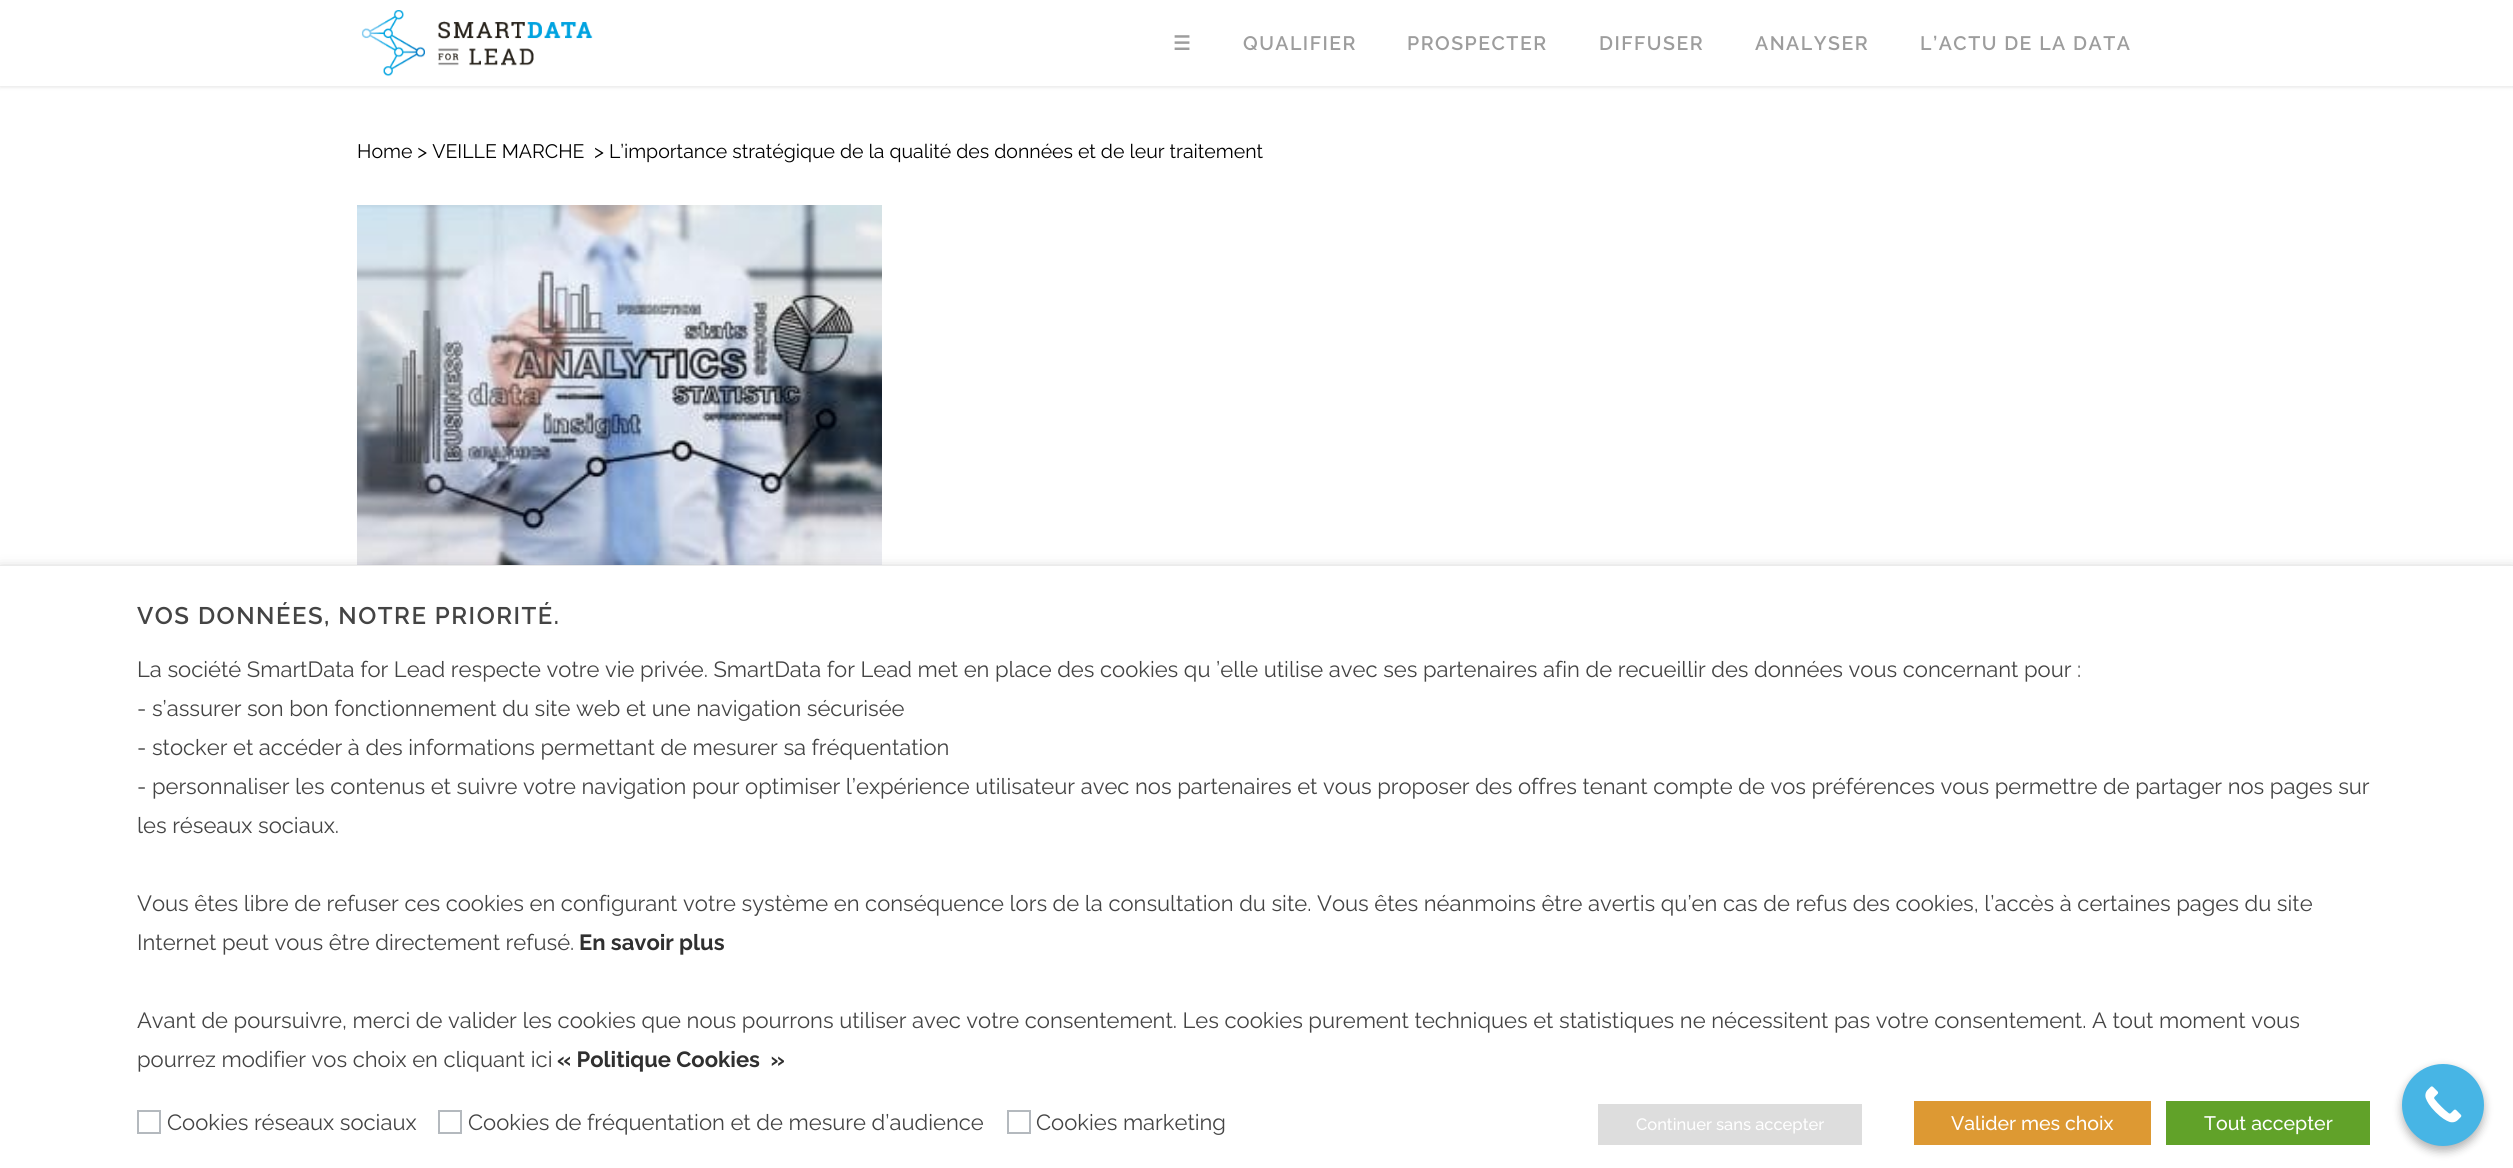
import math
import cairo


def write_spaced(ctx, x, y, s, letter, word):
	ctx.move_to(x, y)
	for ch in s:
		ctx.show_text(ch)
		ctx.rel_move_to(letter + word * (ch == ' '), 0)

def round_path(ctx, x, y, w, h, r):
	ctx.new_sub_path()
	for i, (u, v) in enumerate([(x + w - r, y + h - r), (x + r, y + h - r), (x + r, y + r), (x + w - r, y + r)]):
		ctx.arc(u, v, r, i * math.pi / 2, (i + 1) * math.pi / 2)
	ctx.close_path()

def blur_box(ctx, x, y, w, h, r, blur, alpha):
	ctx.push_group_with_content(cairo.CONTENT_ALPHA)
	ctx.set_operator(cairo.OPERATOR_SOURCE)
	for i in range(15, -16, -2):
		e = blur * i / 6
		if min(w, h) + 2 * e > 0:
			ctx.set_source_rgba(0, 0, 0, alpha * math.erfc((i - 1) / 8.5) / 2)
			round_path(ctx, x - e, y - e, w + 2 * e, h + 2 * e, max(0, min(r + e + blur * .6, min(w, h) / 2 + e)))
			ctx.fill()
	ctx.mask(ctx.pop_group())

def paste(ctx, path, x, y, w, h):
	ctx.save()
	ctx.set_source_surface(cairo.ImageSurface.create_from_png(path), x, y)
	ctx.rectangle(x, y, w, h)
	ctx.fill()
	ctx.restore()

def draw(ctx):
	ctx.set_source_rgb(1, 1, 1)
	ctx.paint()
	ctx.set_source_rgb(0, 0, 0)
	blur_box(ctx, 0, 2, 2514, 85, 0, 2, 0.11)
	ctx.set_source_rgb(1, 1, 1)
	ctx.rectangle(0, 0, 2513, 86)
	ctx.fill()
	paste(ctx, 'media/1.png', 361, 10, 232, 67)
	ctx.select_font_face('DejaVu Sans', cairo.FONT_SLANT_NORMAL, cairo.FONT_WEIGHT_BOLD)
	ctx.set_font_size(19.5)
	ctx.set_source_rgb(0.616, 0.616, 0.616)
	write_spaced(ctx, 1173, 50, '☰', 1.5, 0)
	ctx.select_font_face('Raleway SemiBold')
	for x, y, s in [
		(1243, 50, 'QUALIFIER'),
		(1407, 50, 'PROSPECTER'),
		(1599, 50, 'DIFFUSER'),
		(1755, 50, 'ANALYSER'),
		(1920, 50, 'L’ACTU DE LA DATA'),
	]:
		write_spaced(ctx, x, y, s, 1.5, 0)
	ctx.select_font_face('Raleway')
	ctx.set_source_rgb(0, 0, 0)
	ctx.move_to(357, 158)
	ctx.show_text('Home > VEILLE MARCHE')
	ctx.move_to(594, 158)
	ctx.show_text('> L’importance stratégique de la qualité des données et de leur traitement')
	paste(ctx, 'media/2.png', 357, 205, 525, 360)
	ctx.set_source_rgb(0, 0, 0)
	blur_box(ctx, 0, 573, 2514, 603, 0, 7.5, 0.5)
	ctx.set_source_rgb(1, 1, 1)
	ctx.rectangle(0, 566, 2513, 602)
	ctx.fill()
	ctx.select_font_face('Raleway SemiBold')
	ctx.set_font_size(24)
	ctx.set_source_rgb(0.267, 0.267, 0.267)
	write_spaced(ctx, 137, 624, 'VOS DONNÉES, NOTRE PRIORITÉ.', 1.5, 0)
	ctx.select_font_face('Raleway')
	ctx.set_font_size(22)
	for x, y, s in [
		(137, 677, 'La société SmartData for Lead respecte votre vie privée. SmartData for Lead met en place des cookies qu ’elle utilise avec ses partenaires afin de recueillir des données vous concernant pour :'),
		(137, 716, '- s’assurer son bon fonctionnement du site web et une navigation sécurisée'),
		(137, 755, '- stocker et accéder à des informations permettant de mesurer sa fréquentation'),
		(137, 794, '- personnaliser les contenus et suivre votre navigation pour optimiser l’expérience utilisateur avec nos partenaires et vous proposer des offres tenant compte de vos préférences vous permettre de partager nos pages sur'),
		(137, 833, 'les réseaux sociaux.'),
		(137, 911, 'Vous êtes libre de refuser ces cookies en configurant votre système en conséquence lors de la consultation du site. Vous êtes néanmoins être avertis qu’en cas de refus des cookies, l’accès à certaines pages du site'),
		(137, 950, 'Internet peut vous être directement refusé.'),
	]:
		ctx.move_to(x, y)
		ctx.show_text(s)
	ctx.select_font_face('Raleway', cairo.FONT_SLANT_NORMAL, cairo.FONT_WEIGHT_BOLD)
	ctx.set_source_rgb(0.188, 0.188, 0.188)
	ctx.move_to(579, 950)
	ctx.show_text('En savoir plus')
	ctx.select_font_face('Raleway')
	ctx.set_source_rgb(0.267, 0.267, 0.267)
	ctx.move_to(137, 1028)
	ctx.show_text('Avant de poursuivre, merci de valider les cookies que nous pourrons utiliser avec votre consentement. Les cookies purement techniques et statistiques ne nécessitent pas votre consentement. A tout moment vous')
	ctx.move_to(137, 1067)
	ctx.show_text('pourrez modifier vos choix en cliquant ici')
	ctx.select_font_face('Raleway', cairo.FONT_SLANT_NORMAL, cairo.FONT_WEIGHT_BOLD)
	ctx.set_source_rgb(0.188, 0.188, 0.188)
	ctx.move_to(557, 1067)
	ctx.show_text('« Politique Cookies  »')
	ctx.rectangle(138, 1111, 22, 22)
	ctx.set_source_rgb(0.706, 0.725, 0.745)
	ctx.stroke()
	ctx.select_font_face('Raleway')
	ctx.set_source_rgb(0.267, 0.267, 0.267)
	ctx.move_to(167, 1130)
	ctx.show_text('Cookies réseaux sociaux')
	ctx.rectangle(439, 1111, 22, 22)
	ctx.set_source_rgb(0.706, 0.725, 0.745)
	ctx.stroke()
	ctx.set_source_rgb(0.267, 0.267, 0.267)
	ctx.move_to(468, 1130)
	ctx.show_text('Cookies de fréquentation et de mesure d’audience')
	ctx.rectangle(1008, 1111, 22, 22)
	ctx.set_source_rgb(0.706, 0.725, 0.745)
	ctx.stroke()
	ctx.set_source_rgb(0.267, 0.267, 0.267)
	ctx.move_to(1036, 1130)
	ctx.show_text('Cookies marketing')
	ctx.set_source_rgb(0.867, 0.867, 0.867)
	ctx.rectangle(1598, 1104, 264, 41)
	ctx.fill()
	ctx.select_font_face('Raleway Medium')
	ctx.set_font_size(16.5)
	ctx.set_source_rgb(1, 1, 1)
	ctx.move_to(1636, 1130)
	ctx.show_text('Continuer sans accepter')
	ctx.set_source_rgb(0.867, 0.6, 0.2)
	ctx.rectangle(1914, 1101, 237, 44)
	ctx.fill()
	ctx.set_font_size(19.5)
	ctx.set_source_rgb(1, 1, 1)
	ctx.move_to(1951, 1130)
	ctx.show_text('Valider mes choix')
	ctx.set_source_rgb(0.38, 0.635, 0.161)
	ctx.rectangle(2166, 1101, 204, 44)
	ctx.fill()
	ctx.set_source_rgb(1, 1, 1)
	ctx.move_to(2204, 1130)
	ctx.show_text('Tout accepter')
	ctx.set_source_rgb(0, 0, 0)
	blur_box(ctx, 2402, 1068, 82, 83, 41, 4.5, 0.3)
	ctx.set_source_rgb(0.278, 0.71, 0.898)
	ctx.arc(2443, 1105, 41, 0, 2 * math.pi)
	ctx.fill()
	paste(ctx, 'media/3.png', 2425, 1086, 37, 37)


surface = cairo.ImageSurface(cairo.FORMAT_RGB24, 2513, 1168)
ctx = cairo.Context(surface)
options = cairo.FontOptions()
options.set_hint_metrics(cairo.HINT_METRICS_OFF)
options.set_hint_style(cairo.HINT_STYLE_NONE)
ctx.set_font_options(options)
ctx.set_miter_limit(4)
draw(ctx)
surface.write_to_png('image.png')
